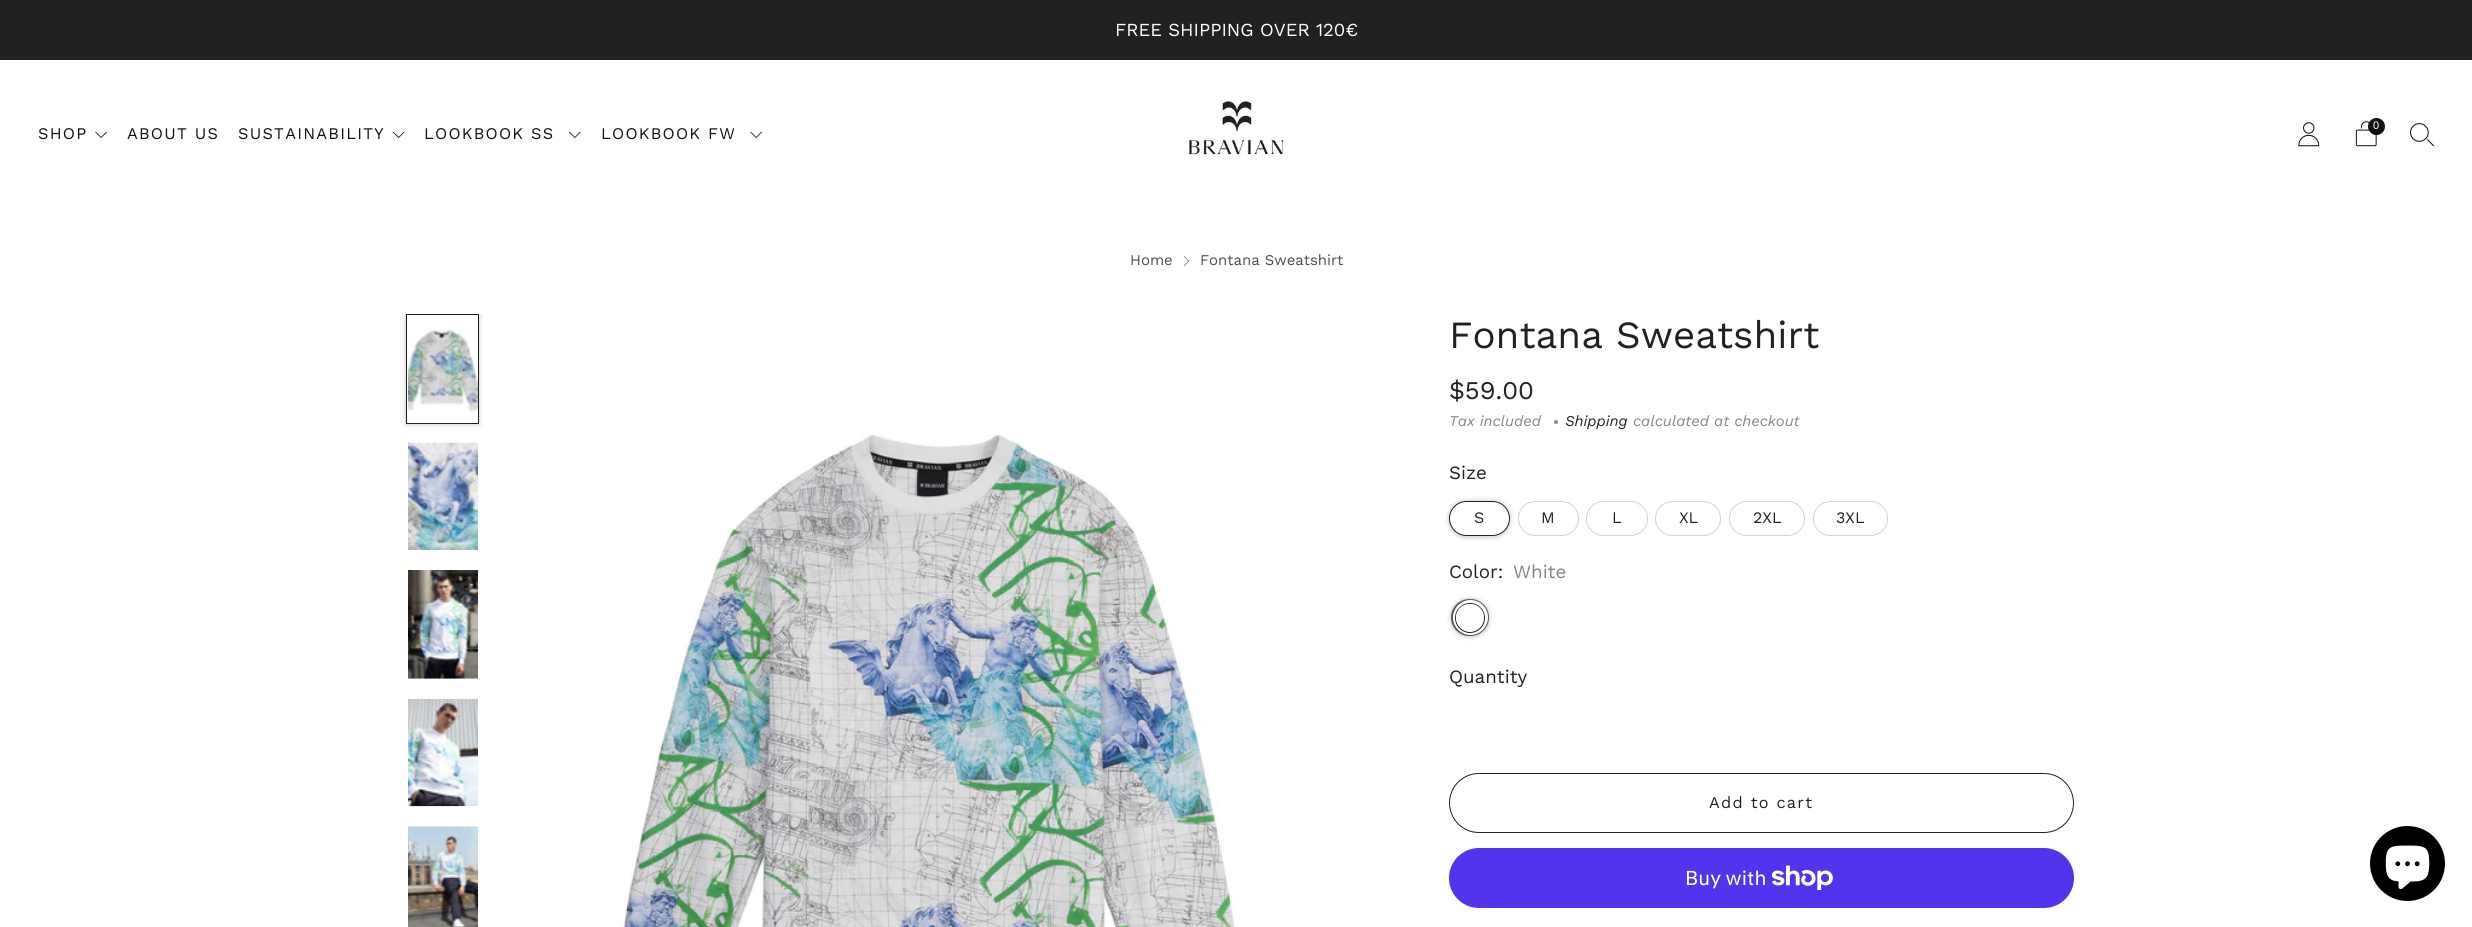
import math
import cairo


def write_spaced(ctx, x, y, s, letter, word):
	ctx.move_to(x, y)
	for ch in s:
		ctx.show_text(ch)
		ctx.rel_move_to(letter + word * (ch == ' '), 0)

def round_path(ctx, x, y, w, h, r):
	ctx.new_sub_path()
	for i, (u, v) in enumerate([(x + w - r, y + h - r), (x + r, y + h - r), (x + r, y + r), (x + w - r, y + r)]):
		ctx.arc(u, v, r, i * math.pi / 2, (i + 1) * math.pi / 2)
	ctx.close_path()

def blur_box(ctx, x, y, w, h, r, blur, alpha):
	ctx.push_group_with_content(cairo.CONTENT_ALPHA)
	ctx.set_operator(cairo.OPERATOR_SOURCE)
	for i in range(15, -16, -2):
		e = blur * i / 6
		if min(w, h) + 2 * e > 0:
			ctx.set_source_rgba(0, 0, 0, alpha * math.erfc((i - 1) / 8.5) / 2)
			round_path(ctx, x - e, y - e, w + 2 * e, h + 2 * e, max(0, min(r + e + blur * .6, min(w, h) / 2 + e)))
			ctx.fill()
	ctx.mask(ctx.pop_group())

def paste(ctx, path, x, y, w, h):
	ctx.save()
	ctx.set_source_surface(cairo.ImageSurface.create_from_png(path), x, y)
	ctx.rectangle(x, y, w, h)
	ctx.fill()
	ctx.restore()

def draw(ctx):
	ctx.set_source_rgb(1, 1, 1)
	ctx.paint()
	ctx.set_source_rgb(0.129, 0.129, 0.129)
	ctx.rectangle(0, 0, 2472, 60)
	ctx.fill()
	ctx.select_font_face('Work Sans')
	ctx.set_font_size(18.4)
	ctx.set_source_rgb(1, 1, 1)
	ctx.move_to(1115, 36)
	ctx.show_text('FREE SHIPPING OVER 120€')
	paste(ctx, 'media/1.png', 1188, 100, 96, 55)
	paste(ctx, 'media/2.png', 2298, 122, 22, 25)
	paste(ctx, 'media/3.png', 2355, 121, 22, 26)
	ctx.set_source_rgb(0.067, 0.067, 0.067)
	ctx.arc(2376.5, 126.5, 8.5, 0, 2 * math.pi)
	ctx.fill()
	ctx.select_font_face('Liberation Sans')
	ctx.set_font_size(11)
	ctx.set_source_rgb(1, 1, 1)
	ctx.move_to(2373, 129)
	ctx.show_text('0')
	paste(ctx, 'media/4.png', 2410, 123, 24, 24)
	ctx.select_font_face('Work Sans')
	ctx.set_font_size(16.25)
	ctx.set_source_rgb(0.067, 0.067, 0.067)
	write_spaced(ctx, 38, 139, 'SHOP', 1.25, 0)
	paste(ctx, 'media/5.png', 95, 131, 12, 7)
	write_spaced(ctx, 127, 139, 'ABOUT US', 1.25, 0)
	write_spaced(ctx, 238, 139, 'SUSTAINABILITY', 1.25, 0)
	paste(ctx, 'media/6.png', 392, 131, 13, 7)
	write_spaced(ctx, 424, 139, 'LOOKBOOK SS', 1.25, 0)
	paste(ctx, 'media/7.png', 569, 131, 12, 7)
	write_spaced(ctx, 601, 139, 'LOOKBOOK FW', 1.25, 0)
	paste(ctx, 'media/5.png', 750, 131, 12, 7)
	ctx.set_font_size(14.9)
	ctx.set_source_rgb(0.302, 0.302, 0.302)
	ctx.move_to(1130, 265)
	ctx.show_text('Home')
	paste(ctx, 'media/8.png', 1183, 256, 7, 10)
	ctx.move_to(1200, 265)
	ctx.show_text('Fontana Sweatshirt')
	ctx.save()
	ctx.rectangle(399, 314, 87, 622)
	ctx.clip()
	ctx.set_fill_rule(cairo.FILL_RULE_EVEN_ODD)
	ctx.new_path()
	ctx.move_to(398, 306)
	ctx.line_to(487, 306)
	ctx.line_to(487, 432)
	ctx.line_to(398, 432)
	ctx.close_path()
	ctx.move_to(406, 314)
	ctx.line_to(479, 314)
	ctx.line_to(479, 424)
	ctx.line_to(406, 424)
	ctx.close_path()
	ctx.clip()
	ctx.set_source_rgb(0.129, 0.129, 0.129)
	blur_box(ctx, 405, 313, 75, 112, 0, 2, 0.2)
	ctx.restore()
	ctx.rectangle(406.5, 314.5, 72, 109)
	ctx.set_source_rgb(0.129, 0.129, 0.129)
	ctx.set_line_width(1)
	ctx.stroke()
	paste(ctx, 'media/9.png', 408, 329, 70, 83)
	paste(ctx, 'media/10.png', 408, 442, 70, 108)
	paste(ctx, 'media/11.png', 408, 570, 70, 109)
	paste(ctx, 'media/12.png', 408, 698, 70, 109)
	paste(ctx, 'media/13.png', 408, 826, 70, 101)
	paste(ctx, 'media/14.png', 620, 434, 619, 493)
	ctx.set_font_size(38.5)
	ctx.move_to(1449, 348)
	ctx.show_text('Fontana Sweatshirt')
	ctx.set_font_size(25.5)
	ctx.move_to(1449, 399)
	ctx.show_text('$59.00')
	ctx.select_font_face('Work Sans', cairo.FONT_SLANT_ITALIC)
	ctx.set_font_size(14.9)
	ctx.set_source_rgb(0.522, 0.522, 0.522)
	ctx.move_to(1449, 426)
	ctx.show_text('Tax included')
	ctx.set_source_rgb(0.545, 0.545, 0.545)
	ctx.new_path()
	ctx.arc(1556, 422, 2, 0, 2 * math.pi)
	ctx.fill()
	ctx.set_source_rgb(0.129, 0.129, 0.129)
	ctx.move_to(1565, 426)
	ctx.show_text('Shipping')
	ctx.set_source_rgb(0.522, 0.522, 0.522)
	ctx.move_to(1633, 426)
	ctx.show_text('calculated at checkout')
	ctx.select_font_face('Work Sans')
	ctx.set_font_size(18.75)
	ctx.set_source_rgb(0.129, 0.129, 0.129)
	ctx.move_to(1449, 479)
	ctx.show_text('Size')
	ctx.save()
	ctx.set_fill_rule(cairo.FILL_RULE_EVEN_ODD)
	ctx.new_path()
	ctx.move_to(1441, 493)
	ctx.line_to(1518, 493)
	ctx.line_to(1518, 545)
	ctx.line_to(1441, 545)
	ctx.close_path()
	ctx.move_to(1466.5, 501)
	ctx.line_to(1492.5, 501)
	ctx.curve_to(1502, 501, 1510, 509, 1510, 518.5)
	ctx.curve_to(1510, 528, 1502, 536, 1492.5, 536)
	ctx.line_to(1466.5, 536)
	ctx.curve_to(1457, 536, 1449, 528, 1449, 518.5)
	ctx.curve_to(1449, 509, 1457, 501, 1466.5, 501)
	ctx.close_path()
	ctx.clip()
	ctx.set_source_rgb(0.129, 0.129, 0.129)
	blur_box(ctx, 1448, 500, 63, 38, 19, 2, 0.2)
	ctx.restore()
	round_path(ctx, 1449.5, 501.5, 60, 34, 17)
	ctx.stroke()
	ctx.set_font_size(16)
	ctx.move_to(1474, 523)
	ctx.show_text('S')
	round_path(ctx, 1518.5, 501.5, 60, 34, 17)
	ctx.set_source_rgb(0.827, 0.827, 0.827)
	ctx.stroke()
	ctx.set_source_rgb(0.129, 0.129, 0.129)
	ctx.move_to(1541, 523)
	ctx.show_text('M')
	round_path(ctx, 1586.5, 501.5, 61, 34, 17)
	ctx.set_source_rgb(0.827, 0.827, 0.827)
	ctx.stroke()
	ctx.set_source_rgb(0.129, 0.129, 0.129)
	ctx.move_to(1612, 523)
	ctx.show_text('L')
	round_path(ctx, 1655.5, 501.5, 65, 34, 17)
	ctx.set_source_rgb(0.827, 0.827, 0.827)
	ctx.stroke()
	ctx.set_source_rgb(0.129, 0.129, 0.129)
	ctx.move_to(1679, 523)
	ctx.show_text('XL')
	round_path(ctx, 1729.5, 501.5, 75, 34, 17)
	ctx.set_source_rgb(0.827, 0.827, 0.827)
	ctx.stroke()
	ctx.set_source_rgb(0.129, 0.129, 0.129)
	ctx.move_to(1753, 523)
	ctx.show_text('2XL')
	round_path(ctx, 1813.5, 501.5, 74, 34, 17)
	ctx.set_source_rgb(0.827, 0.827, 0.827)
	ctx.stroke()
	ctx.set_source_rgb(0.129, 0.129, 0.129)
	ctx.move_to(1836, 523)
	ctx.show_text('3XL')
	ctx.set_font_size(18.75)
	ctx.move_to(1449, 578)
	ctx.show_text('Color:')
	ctx.set_source_rgb(0.522, 0.522, 0.522)
	ctx.move_to(1513, 578)
	ctx.show_text('White')
	ctx.set_source_rgb(0.129, 0.129, 0.129)
	blur_box(ctx, 1450, 598, 40, 40, 20, 2, 0.2)
	round_path(ctx, 1453.5, 601.5, 33, 32, 16)
	ctx.set_source_rgba(0.129, 0.129, 0.129, 0.7)
	ctx.set_line_width(5)
	ctx.stroke()
	ctx.arc(1470.5, 617.5, 15.5, 0, 2 * math.pi)
	ctx.set_source_rgb(1, 1, 1)
	ctx.set_line_width(4)
	ctx.stroke()
	ctx.arc(1470, 618, 14.5, 0, 2 * math.pi)
	ctx.set_source_rgb(0.129, 0.129, 0.129)
	ctx.set_line_width(1)
	ctx.stroke()
	ctx.set_source_rgb(1, 1, 1)
	round_path(ctx, 1456, 604, 28, 27, 13.5)
	ctx.fill()
	ctx.set_source_rgb(0.129, 0.129, 0.129)
	ctx.move_to(1449, 683)
	ctx.show_text('Quantity')
	round_path(ctx, 1449.5, 773.5, 624, 59, 29.5)
	ctx.stroke()
	ctx.set_font_size(16.25)
	write_spaced(ctx, 1709, 808, 'Add to cart', 1.25, 0)
	ctx.set_source_rgb(0.329, 0.2, 0.922)
	round_path(ctx, 1449, 848, 625, 60, 30)
	ctx.fill()
	ctx.select_font_face('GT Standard')
	ctx.set_font_size(20)
	ctx.set_source_rgb(1, 1, 1)
	ctx.move_to(1685, 885)
	ctx.show_text('Buy with')
	paste(ctx, 'media/15.png', 1771, 865, 62, 25)
	ctx.set_source_rgb(0, 0, 0)
	ctx.arc(2407.5, 863.5, 37.5, 0, 2 * math.pi)
	ctx.fill()
	paste(ctx, 'media/16.png', 2385, 845, 45, 45)


surface = cairo.ImageSurface(cairo.FORMAT_RGB24, 2472, 927)
ctx = cairo.Context(surface)
options = cairo.FontOptions()
options.set_hint_metrics(cairo.HINT_METRICS_OFF)
options.set_hint_style(cairo.HINT_STYLE_NONE)
ctx.set_font_options(options)
ctx.set_miter_limit(4)
draw(ctx)
surface.write_to_png('image.png')
